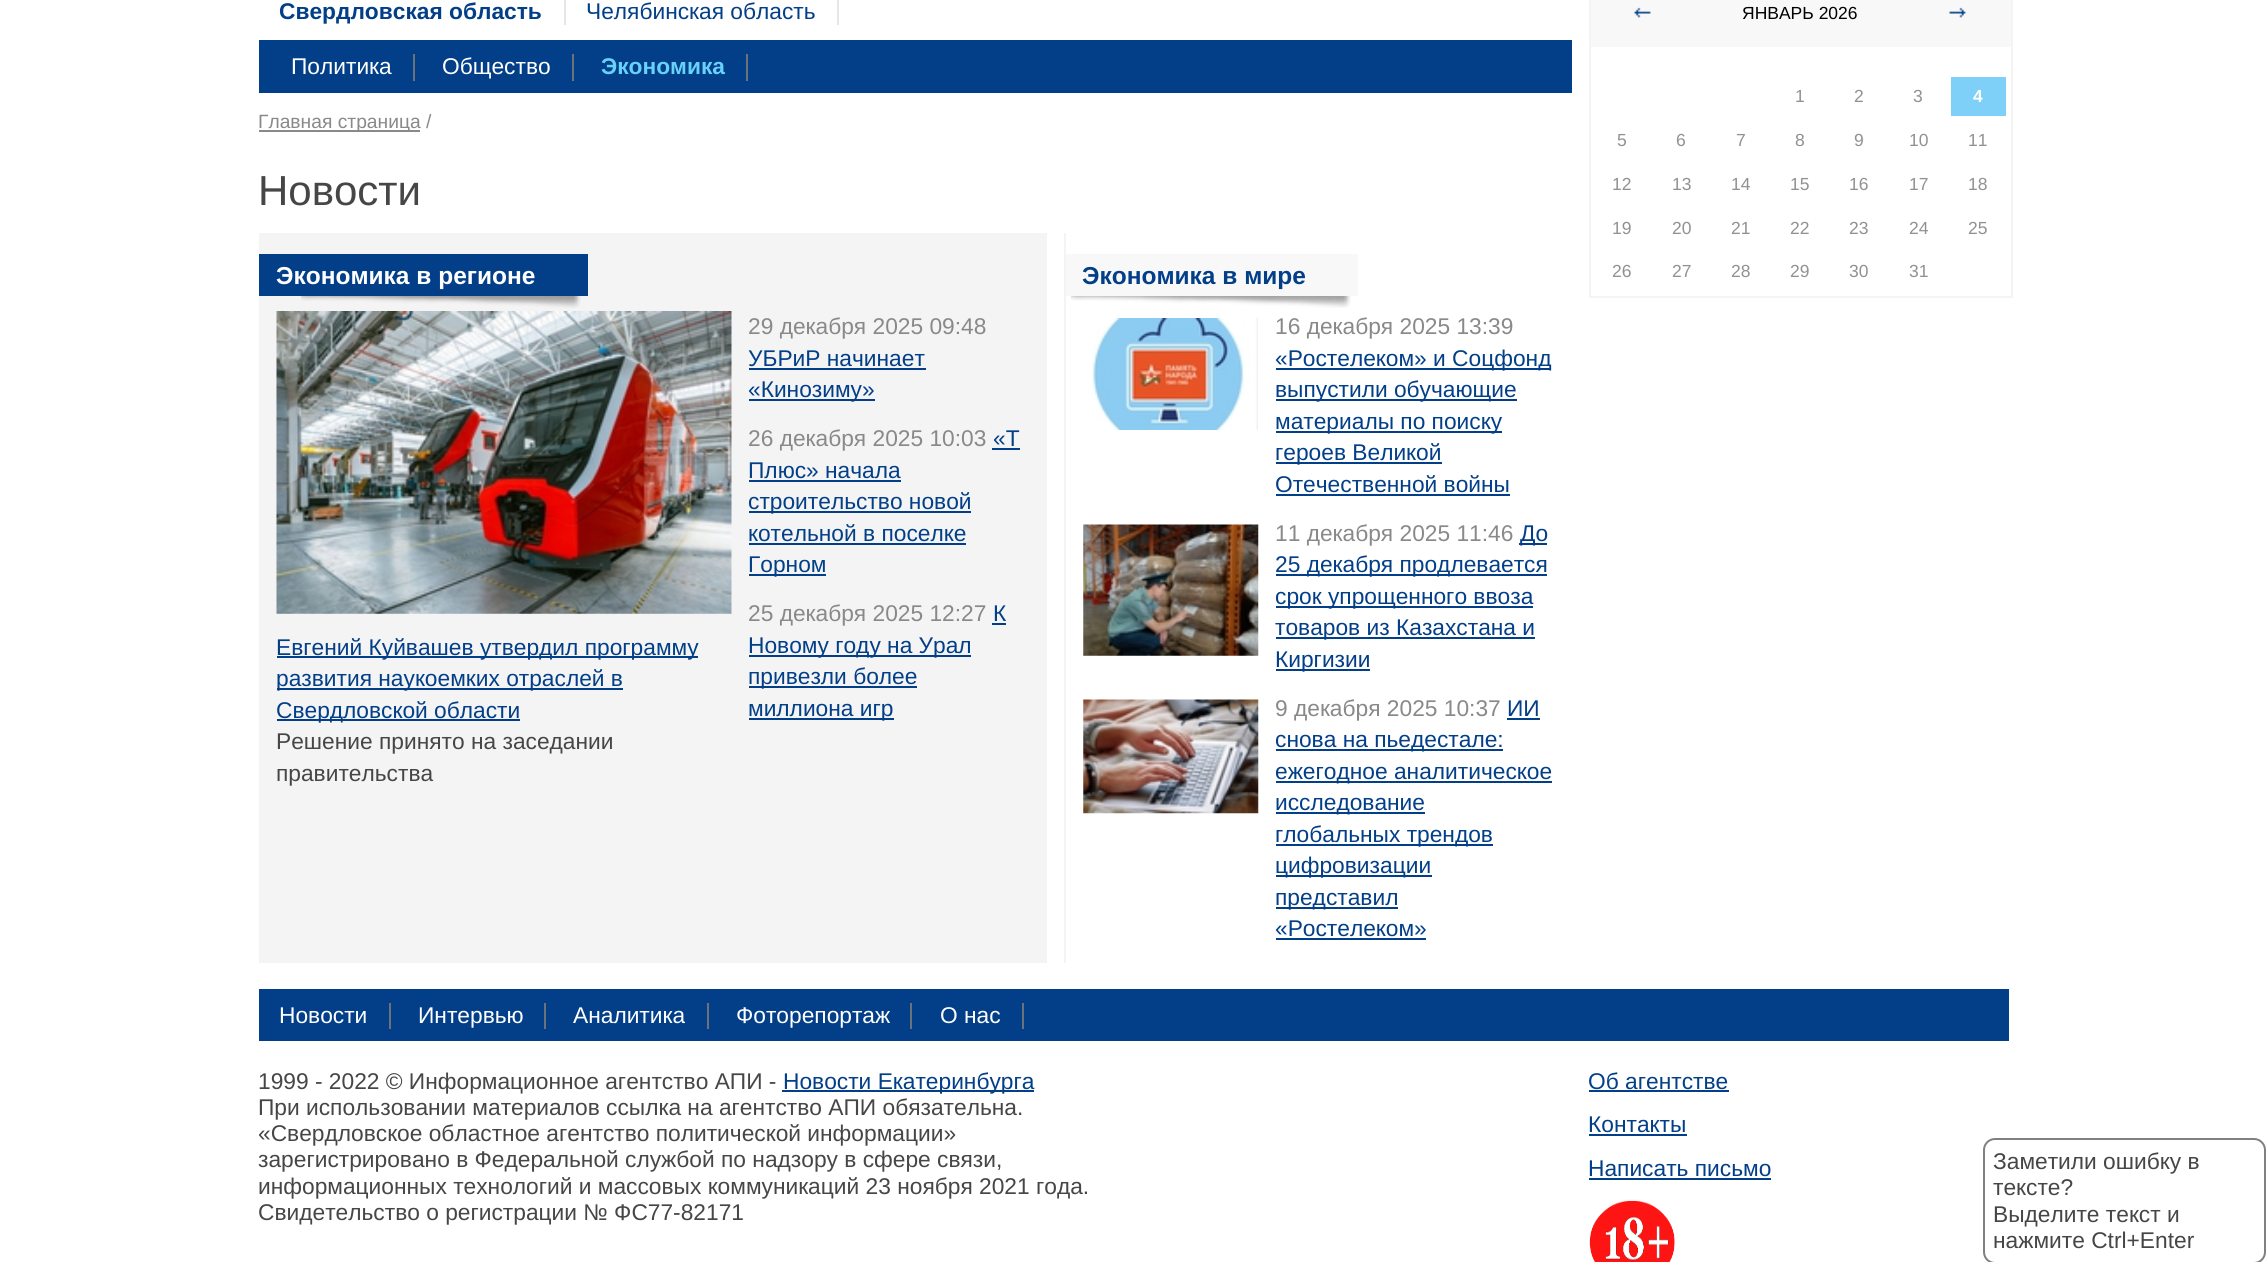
import math
import cairo


def round_path(ctx, x, y, w, h, r):
	ctx.new_sub_path()
	for i, (u, v) in enumerate([(x + w - r, y + h - r), (x + r, y + h - r), (x + r, y + r), (x + w - r, y + r)]):
		ctx.arc(u, v, r, i * math.pi / 2, (i + 1) * math.pi / 2)
	ctx.close_path()

def paste(ctx, path, x, y, w, h):
	ctx.save()
	ctx.set_source_surface(cairo.ImageSurface.create_from_png(path), x, y)
	ctx.rectangle(x, y, w, h)
	ctx.fill()
	ctx.restore()

def draw(ctx):
	ctx.set_source_rgb(1, 1, 1)
	ctx.paint()
	ctx.select_font_face('Liberation Sans', cairo.FONT_SLANT_NORMAL, cairo.FONT_WEIGHT_BOLD)
	ctx.set_font_size(22.75)
	ctx.set_source_rgb(0.008, 0.247, 0.533)
	ctx.move_to(279, 19)
	ctx.show_text('Свердловская область')
	ctx.set_source_rgb(0.902, 0.902, 0.902)
	ctx.rectangle(564, 0, 2, 25)
	ctx.fill()
	ctx.select_font_face('Liberation Sans')
	ctx.set_source_rgb(0.008, 0.247, 0.533)
	ctx.move_to(586, 19)
	ctx.show_text('Челябинская область')
	ctx.set_source_rgb(0.902, 0.902, 0.902)
	ctx.rectangle(837, 0, 2, 25)
	ctx.fill()
	ctx.set_source_rgb(0.008, 0.247, 0.533)
	ctx.rectangle(259, 40, 1313, 53)
	ctx.fill()
	ctx.set_source_rgb(1, 1, 1)
	ctx.move_to(291, 74)
	ctx.show_text('Политика')
	ctx.set_source_rgb(0.42, 0.447, 0.475)
	ctx.rectangle(413, 54, 2, 27)
	ctx.fill()
	ctx.set_source_rgb(1, 1, 1)
	ctx.move_to(442, 74)
	ctx.show_text('Общество')
	ctx.set_source_rgb(0.42, 0.447, 0.475)
	ctx.rectangle(572, 54, 2, 27)
	ctx.fill()
	ctx.select_font_face('Liberation Sans', cairo.FONT_SLANT_NORMAL, cairo.FONT_WEIGHT_BOLD)
	ctx.set_source_rgb(0.408, 0.82, 0.976)
	ctx.move_to(601, 74)
	ctx.show_text('Экономика')
	ctx.set_source_rgb(0.42, 0.447, 0.475)
	ctx.rectangle(746, 54, 2, 27)
	ctx.fill()
	ctx.set_source_rgb(0.537, 0.537, 0.537)
	ctx.rectangle(259, 130, 161, 2)
	ctx.fill()
	ctx.select_font_face('Liberation Sans')
	ctx.set_font_size(19.25)
	ctx.move_to(258, 128)
	ctx.show_text('Главная страница /')
	ctx.set_font_size(42)
	ctx.set_source_rgb(0.275, 0.275, 0.275)
	ctx.move_to(258, 205)
	ctx.show_text('Новости')
	ctx.set_source_rgb(0.957, 0.957, 0.957)
	ctx.rectangle(259, 233, 788, 730)
	ctx.fill()
	ctx.set_source_rgb(0.008, 0.247, 0.533)
	ctx.rectangle(259, 254, 329, 42)
	ctx.fill()
	ctx.select_font_face('Liberation Sans', cairo.FONT_SLANT_NORMAL, cairo.FONT_WEIGHT_BOLD)
	ctx.set_font_size(24.5)
	ctx.set_source_rgb(1, 1, 1)
	ctx.move_to(276, 284)
	ctx.show_text('Экономика в регионе')
	paste(ctx, 'media/1.png', 301, 296, 280, 12)
	paste(ctx, 'media/2.png', 276, 311, 456, 303)
	ctx.set_source_rgb(0.008, 0.247, 0.533)
	ctx.rectangle(277, 656, 421, 2)
	ctx.fill()
	ctx.select_font_face('Liberation Sans')
	ctx.set_font_size(22.75)
	ctx.move_to(276, 655)
	ctx.show_text('Евгений Куйвашев утвердил программу')
	ctx.rectangle(277, 688, 346, 2)
	ctx.fill()
	ctx.move_to(276, 686)
	ctx.show_text('развития наукоемких отраслей в')
	ctx.rectangle(277, 719, 243, 2)
	ctx.fill()
	ctx.move_to(276, 718)
	ctx.show_text('Свердловской области')
	ctx.set_source_rgb(0.275, 0.275, 0.275)
	ctx.move_to(276, 749)
	ctx.show_text('Решение принято на заседании')
	ctx.move_to(276, 781)
	ctx.show_text('правительства')
	ctx.set_source_rgb(0.537, 0.537, 0.537)
	ctx.move_to(748, 334)
	ctx.show_text('29 декабря 2025 09:48')
	ctx.set_source_rgb(0.008, 0.247, 0.533)
	ctx.move_to(748, 366)
	ctx.show_text('УБРиР начинает')
	ctx.rectangle(749, 368, 177, 2)
	ctx.fill()
	ctx.rectangle(749, 399, 126, 2)
	ctx.fill()
	ctx.move_to(748, 397)
	ctx.show_text('«Кинозиму»')
	ctx.set_source_rgb(0.537, 0.537, 0.537)
	ctx.move_to(748, 446)
	ctx.show_text('26 декабря 2025 10:03')
	ctx.set_source_rgb(0.008, 0.247, 0.533)
	ctx.move_to(993, 446)
	ctx.show_text('«Т')
	ctx.rectangle(992, 448, 28, 2)
	ctx.fill()
	ctx.move_to(748, 478)
	ctx.show_text('Плюс» начала')
	ctx.rectangle(749, 480, 152, 2)
	ctx.fill()
	ctx.rectangle(749, 511, 222, 2)
	ctx.fill()
	ctx.move_to(748, 509)
	ctx.show_text('строительство новой')
	ctx.move_to(748, 541)
	ctx.show_text('котельной в поселке')
	ctx.rectangle(749, 543, 217, 2)
	ctx.fill()
	ctx.rectangle(749, 574, 77, 2)
	ctx.fill()
	ctx.move_to(748, 572)
	ctx.show_text('Горном')
	ctx.set_source_rgb(0.537, 0.537, 0.537)
	ctx.move_to(748, 621)
	ctx.show_text('25 декабря 2025 12:27')
	ctx.set_source_rgb(0.008, 0.247, 0.533)
	ctx.move_to(993, 621)
	ctx.show_text('К')
	ctx.rectangle(992, 623, 14, 2)
	ctx.fill()
	ctx.rectangle(749, 655, 222, 2)
	ctx.fill()
	ctx.move_to(748, 653)
	ctx.show_text('Новому году на Урал')
	ctx.rectangle(749, 686, 168, 2)
	ctx.fill()
	ctx.move_to(748, 684)
	ctx.show_text('привезли более')
	ctx.rectangle(749, 718, 145, 2)
	ctx.fill()
	ctx.move_to(748, 716)
	ctx.show_text('миллиона игр')
	ctx.set_source_rgb(0.957, 0.957, 0.957)
	ctx.rectangle(1064, 233, 2, 730)
	ctx.fill()
	ctx.set_source_rgb(0.969, 0.969, 0.969)
	ctx.rectangle(1066, 254, 292, 42)
	ctx.fill()
	ctx.select_font_face('Liberation Sans', cairo.FONT_SLANT_NORMAL, cairo.FONT_WEIGHT_BOLD)
	ctx.set_font_size(24.5)
	ctx.set_source_rgb(0.008, 0.247, 0.533)
	ctx.move_to(1082, 284)
	ctx.show_text('Экономика в мире')
	paste(ctx, 'media/3.png', 1071, 296, 280, 12)
	paste(ctx, 'media/4.png', 1092, 318, 166, 112)
	ctx.select_font_face('Liberation Sans')
	ctx.set_font_size(22.75)
	ctx.set_source_rgb(0.537, 0.537, 0.537)
	ctx.move_to(1275, 334)
	ctx.show_text('16 декабря 2025 13:39')
	ctx.set_source_rgb(0.008, 0.247, 0.533)
	ctx.rectangle(1276, 368, 275, 2)
	ctx.fill()
	ctx.move_to(1275, 366)
	ctx.show_text('«Ростелеком» и Соцфонд')
	ctx.rectangle(1276, 399, 241, 2)
	ctx.fill()
	ctx.move_to(1275, 397)
	ctx.show_text('выпустили обучающие')
	ctx.rectangle(1276, 431, 226, 2)
	ctx.fill()
	ctx.move_to(1275, 429)
	ctx.show_text('материалы по поиску')
	ctx.rectangle(1276, 462, 166, 2)
	ctx.fill()
	ctx.move_to(1275, 460)
	ctx.show_text('героев Великой')
	ctx.move_to(1275, 492)
	ctx.show_text('Отечественной войны')
	ctx.rectangle(1276, 494, 234, 2)
	ctx.fill()
	paste(ctx, 'media/5.png', 1083, 524, 176, 132)
	ctx.set_source_rgb(0.537, 0.537, 0.537)
	ctx.move_to(1275, 541)
	ctx.show_text('11 декабря 2025 11:46')
	ctx.set_source_rgb(0.008, 0.247, 0.533)
	ctx.rectangle(1519, 543, 28, 2)
	ctx.fill()
	ctx.move_to(1520, 541)
	ctx.show_text('До')
	ctx.rectangle(1276, 574, 271, 2)
	ctx.fill()
	ctx.move_to(1275, 572)
	ctx.show_text('25 декабря продлевается')
	ctx.rectangle(1276, 606, 257, 2)
	ctx.fill()
	ctx.move_to(1275, 604)
	ctx.show_text('срок упрощенного ввоза')
	ctx.rectangle(1276, 637, 259, 2)
	ctx.fill()
	ctx.move_to(1275, 635)
	ctx.show_text('товаров из Казахстана и')
	ctx.rectangle(1276, 669, 94, 2)
	ctx.fill()
	ctx.move_to(1275, 667)
	ctx.show_text('Киргизии')
	paste(ctx, 'media/6.png', 1083, 699, 176, 115)
	ctx.set_source_rgb(0.537, 0.537, 0.537)
	ctx.move_to(1275, 716)
	ctx.show_text('9 декабря 2025 10:37')
	ctx.set_source_rgb(0.008, 0.247, 0.533)
	ctx.move_to(1507, 716)
	ctx.show_text('ИИ')
	ctx.rectangle(1507, 718, 33, 2)
	ctx.fill()
	ctx.rectangle(1276, 749, 227, 2)
	ctx.fill()
	ctx.move_to(1275, 747)
	ctx.show_text('снова на пьедестале:')
	ctx.rectangle(1276, 781, 276, 2)
	ctx.fill()
	ctx.move_to(1275, 779)
	ctx.show_text('ежегодное аналитическое')
	ctx.rectangle(1276, 812, 149, 2)
	ctx.fill()
	ctx.move_to(1275, 810)
	ctx.show_text('исследование')
	ctx.rectangle(1276, 844, 217, 2)
	ctx.fill()
	ctx.move_to(1275, 842)
	ctx.show_text('глобальных трендов')
	ctx.rectangle(1276, 875, 156, 2)
	ctx.fill()
	ctx.move_to(1275, 873)
	ctx.show_text('цифровизации')
	ctx.rectangle(1276, 907, 122, 2)
	ctx.fill()
	ctx.move_to(1275, 905)
	ctx.show_text('представил')
	ctx.move_to(1275, 936)
	ctx.show_text('«Ростелеком»')
	ctx.rectangle(1276, 938, 150, 2)
	ctx.fill()
	ctx.rectangle(1590, -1, 422, 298)
	ctx.set_source_rgb(0.957, 0.957, 0.957)
	ctx.stroke()
	ctx.set_source_rgb(0.969, 0.969, 0.969)
	ctx.rectangle(1591, 0, 420, 47)
	ctx.fill()
	paste(ctx, 'media/7.png', 1634, 7, 17, 11)
	ctx.set_font_size(17.5)
	ctx.set_source_rgb(0, 0, 0)
	ctx.move_to(1742, 19)
	ctx.show_text('ЯНВАРЬ 2026')
	paste(ctx, 'media/8.png', 1949, 7, 17, 11)
	ctx.set_source_rgb(0.569, 0.569, 0.569)
	for x, y, s in [
		(1795, 102, '1'),
		(1854, 102, '2'),
		(1913, 102, '3'),
	]:
		ctx.move_to(x, y)
		ctx.show_text(s)
	ctx.set_source_rgb(0.498, 0.816, 0.976)
	ctx.rectangle(1951, 77, 55, 39)
	ctx.fill()
	ctx.select_font_face('Liberation Sans', cairo.FONT_SLANT_NORMAL, cairo.FONT_WEIGHT_BOLD)
	ctx.set_source_rgb(1, 1, 1)
	ctx.move_to(1973, 102)
	ctx.show_text('4')
	ctx.select_font_face('Liberation Sans')
	ctx.set_source_rgb(0.569, 0.569, 0.569)
	for x, y, s in [
		(1617, 146, '5'),
		(1676, 146, '6'),
		(1736, 146, '7'),
		(1795, 146, '8'),
		(1854, 146, '9'),
		(1909, 146, '10'),
		(1968, 146, '11'),
		(1612, 190, '12'),
		(1672, 190, '13'),
		(1731, 190, '14'),
		(1790, 190, '15'),
		(1849, 190, '16'),
		(1909, 190, '17'),
		(1968, 190, '18'),
		(1612, 234, '19'),
		(1672, 234, '20'),
		(1731, 234, '21'),
		(1790, 234, '22'),
		(1849, 234, '23'),
		(1909, 234, '24'),
		(1968, 234, '25'),
		(1612, 277, '26'),
		(1672, 277, '27'),
		(1731, 277, '28'),
		(1790, 277, '29'),
		(1849, 277, '30'),
		(1909, 277, '31'),
	]:
		ctx.move_to(x, y)
		ctx.show_text(s)
	ctx.set_source_rgb(0.008, 0.247, 0.533)
	ctx.rectangle(259, 989, 1750, 52)
	ctx.fill()
	ctx.set_font_size(22.75)
	ctx.set_source_rgb(1, 1, 1)
	ctx.move_to(279, 1023)
	ctx.show_text('Новости')
	ctx.set_source_rgb(0.42, 0.447, 0.475)
	ctx.rectangle(389, 1003, 2, 26)
	ctx.fill()
	ctx.set_source_rgb(1, 1, 1)
	ctx.move_to(418, 1023)
	ctx.show_text('Интервью')
	ctx.set_source_rgb(0.42, 0.447, 0.475)
	ctx.rectangle(544, 1003, 2, 26)
	ctx.fill()
	ctx.set_source_rgb(1, 1, 1)
	ctx.move_to(573, 1023)
	ctx.show_text('Аналитика')
	ctx.set_source_rgb(0.42, 0.447, 0.475)
	ctx.rectangle(707, 1003, 2, 26)
	ctx.fill()
	ctx.set_source_rgb(1, 1, 1)
	ctx.move_to(736, 1023)
	ctx.show_text('Фоторепортаж')
	ctx.set_source_rgb(0.42, 0.447, 0.475)
	ctx.rectangle(910, 1003, 2, 26)
	ctx.fill()
	ctx.set_source_rgb(1, 1, 1)
	ctx.move_to(940, 1023)
	ctx.show_text('О нас')
	ctx.set_source_rgb(0.42, 0.447, 0.475)
	ctx.rectangle(1022, 1003, 2, 26)
	ctx.fill()
	ctx.set_source_rgb(0.275, 0.275, 0.275)
	ctx.move_to(258, 1089)
	ctx.show_text('1999 - 2022 © Информационное агентство АПИ -')
	ctx.set_source_rgb(0.008, 0.247, 0.533)
	ctx.rectangle(782, 1090, 252, 2)
	ctx.fill()
	ctx.move_to(783, 1089)
	ctx.show_text('Новости Екатеринбурга')
	ctx.set_source_rgb(0.275, 0.275, 0.275)
	for x, y, s in [
		(258, 1115, 'При использовании материалов ссылка на агентство АПИ обязательна.'),
		(258, 1141, '«Свердловское областное агентство политической информации»'),
		(258, 1167, 'зарегистрировано в Федеральной службой по надзору в сфере связи,'),
		(258, 1194, 'информационных технологий и массовых коммуникаций 23 ноября 2021 года.'),
		(258, 1220, 'Свидетельство о регистрации № ФС77-82171'),
	]:
		ctx.move_to(x, y)
		ctx.show_text(s)
	ctx.set_source_rgb(0.008, 0.247, 0.533)
	ctx.move_to(1588, 1089)
	ctx.show_text('Об агентстве')
	ctx.rectangle(1589, 1090, 140, 2)
	ctx.fill()
	ctx.move_to(1588, 1132)
	ctx.show_text('Контакты')
	ctx.rectangle(1589, 1134, 98, 2)
	ctx.fill()
	ctx.move_to(1588, 1176)
	ctx.show_text('Написать письмо')
	ctx.rectangle(1589, 1178, 182, 2)
	ctx.fill()
	paste(ctx, 'media/9.png', 1589, 1200, 86, 62)
	round_path(ctx, 1984, 1139, 281, 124, 11)
	ctx.set_source_rgb(0.502, 0.502, 0.502)
	ctx.stroke()
	ctx.set_source_rgb(0.275, 0.275, 0.275)
	for x, y, s in [
		(1993, 1169, 'Заметили ошибку в'),
		(1993, 1195, 'тексте?'),
		(1993, 1222, 'Выделите текст и'),
		(1993, 1248, 'нажмите Ctrl+Enter'),
	]:
		ctx.move_to(x, y)
		ctx.show_text(s)


surface = cairo.ImageSurface(cairo.FORMAT_RGB24, 2266, 1262)
ctx = cairo.Context(surface)
options = cairo.FontOptions()
options.set_hint_metrics(cairo.HINT_METRICS_OFF)
options.set_hint_style(cairo.HINT_STYLE_NONE)
ctx.set_font_options(options)
ctx.set_miter_limit(4)
draw(ctx)
surface.write_to_png('image.png')
